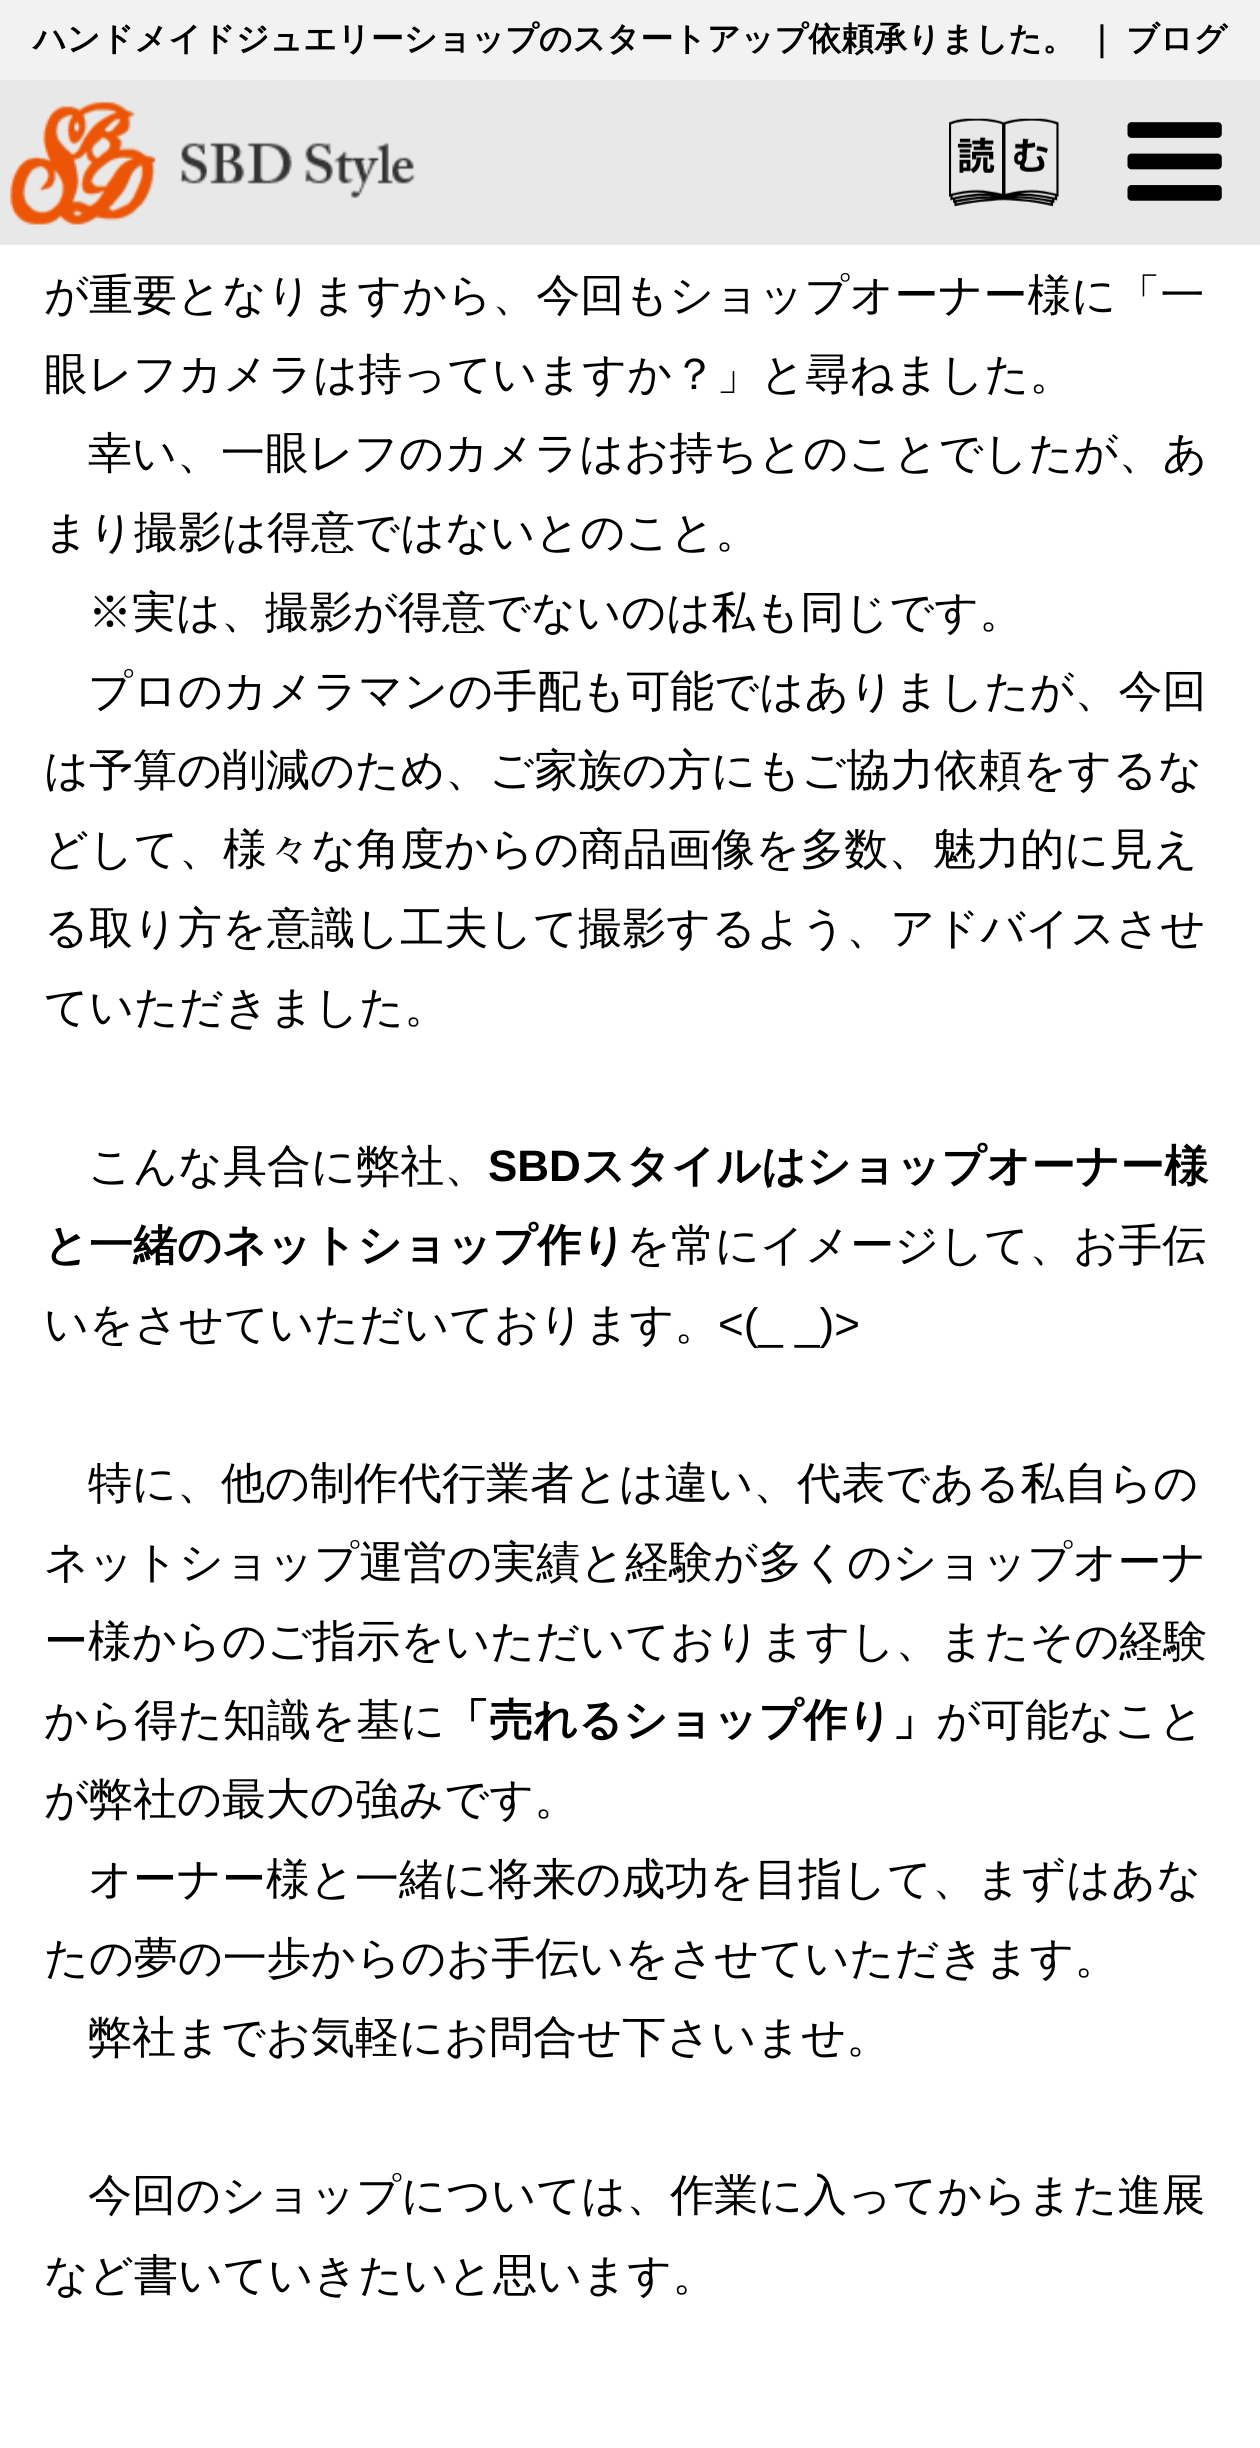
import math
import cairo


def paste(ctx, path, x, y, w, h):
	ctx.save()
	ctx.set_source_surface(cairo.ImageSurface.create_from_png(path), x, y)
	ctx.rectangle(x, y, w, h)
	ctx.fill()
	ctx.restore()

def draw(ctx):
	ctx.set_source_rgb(1, 1, 1)
	ctx.paint()
	ctx.set_source_rgb(0.949, 0.949, 0.949)
	ctx.rectangle(0, 0, 1260, 80)
	ctx.fill()
	ctx.select_font_face('WenQuanYi Zen Hei', cairo.FONT_SLANT_NORMAL, cairo.FONT_WEIGHT_BOLD)
	ctx.set_font_size(33)
	ctx.set_source_rgb(0, 0, 0)
	for x, y, s in [
		(33, 50, 'ハンドメイドジュエリーショップのスタートアップ依頼承りました。'),
		(1085, 50, '｜'),
		(1126, 50, 'ブログ'),
	]:
		ctx.move_to(x, y)
		ctx.show_text(s)
	ctx.set_source_rgb(0.91, 0.91, 0.91)
	ctx.rectangle(0, 80, 1260, 165)
	ctx.fill()
	paste(ctx, 'media/1.png', 9, 101, 407, 124)
	paste(ctx, 'media/2.png', 949, 118, 110, 89)
	paste(ctx, 'media/3.png', 1127, 122, 95, 79)
	ctx.select_font_face('WenQuanYi Zen Hei Medium')
	ctx.set_font_size(44)
	ctx.set_source_rgb(0, 0, 0)
	for x, y, s in [
		(44, 310, 'が重要となりますから、今回もショップオーナー様に「一'),
		(44, 389, '眼レフカメラは持っていますか？」と尋ねました。'),
		(88, 468, '幸い、一眼レフのカメラはお持ちとのことでしたが、あ'),
		(44, 547, 'まり撮影は得意ではないとのこと。'),
		(88, 627, '※実は、撮影が得意でないのは私も同じです。'),
		(88, 706, 'プロのカメラマンの手配も可能ではありましたが、今回'),
		(44, 785, 'は予算の削減のため、ご家族の方にもご協力依頼をするな'),
		(44, 864, 'どして、様々な角度からの商品画像を多数、魅力的に見え'),
		(44, 943, 'る取り方を意識し工夫して撮影するよう、アドバイスさせ'),
		(44, 1022, 'ていただきました。'),
		(88, 1181, 'こんな具合に弊社、'),
	]:
		ctx.move_to(x, y)
		ctx.show_text(s)
	ctx.select_font_face('Liberation Sans', cairo.FONT_SLANT_NORMAL, cairo.FONT_WEIGHT_BOLD)
	ctx.move_to(488, 1181)
	ctx.show_text('SBD')
	ctx.select_font_face('WenQuanYi Zen Hei', cairo.FONT_SLANT_NORMAL, cairo.FONT_WEIGHT_BOLD)
	ctx.move_to(581, 1181)
	ctx.show_text('スタイルはショップオーナー様')
	ctx.move_to(44, 1260)
	ctx.show_text('と一緒のネットショップ作り')
	ctx.select_font_face('WenQuanYi Zen Hei Medium')
	ctx.move_to(626, 1260)
	ctx.show_text('を常にイメージして、お手伝')
	ctx.move_to(44, 1339)
	ctx.show_text('いをさせていただいております。')
	ctx.select_font_face('Liberation Sans')
	ctx.move_to(718, 1339)
	ctx.show_text('<(_ _)>')
	ctx.select_font_face('WenQuanYi Zen Hei Medium')
	for x, y, s in [
		(88, 1498, '特に、他の制作代行業者とは違い、代表である私自らの'),
		(44, 1577, 'ネットショップ運営の実績と経験が多くのショップオーナ'),
		(44, 1656, 'ー様からのご指示をいただいておりますし、またその経験'),
		(44, 1735, 'から得た知識を基に'),
	]:
		ctx.move_to(x, y)
		ctx.show_text(s)
	ctx.select_font_face('WenQuanYi Zen Hei', cairo.FONT_SLANT_NORMAL, cairo.FONT_WEIGHT_BOLD)
	ctx.move_to(445, 1735)
	ctx.show_text('「売れるショップ作り」')
	ctx.select_font_face('WenQuanYi Zen Hei Medium')
	for x, y, s in [
		(936, 1735, 'が可能なこと'),
		(44, 1814, 'が弊社の最大の強みです。'),
		(88, 1894, 'オーナー様と一緒に将来の成功を目指して、まずはあな'),
		(44, 1973, 'たの夢の一歩からのお手伝いをさせていただきます。'),
		(88, 2052, '弊社までお気軽にお問合せ下さいませ。'),
		(88, 2210, '今回のショップについては、作業に入ってからまた進展'),
		(44, 2290, 'など書いていきたいと思います。'),
	]:
		ctx.move_to(x, y)
		ctx.show_text(s)


surface = cairo.ImageSurface(cairo.FORMAT_RGB24, 1260, 2448)
ctx = cairo.Context(surface)
options = cairo.FontOptions()
options.set_hint_metrics(cairo.HINT_METRICS_OFF)
options.set_hint_style(cairo.HINT_STYLE_NONE)
ctx.set_font_options(options)
ctx.set_miter_limit(4)
draw(ctx)
surface.write_to_png('image.png')
